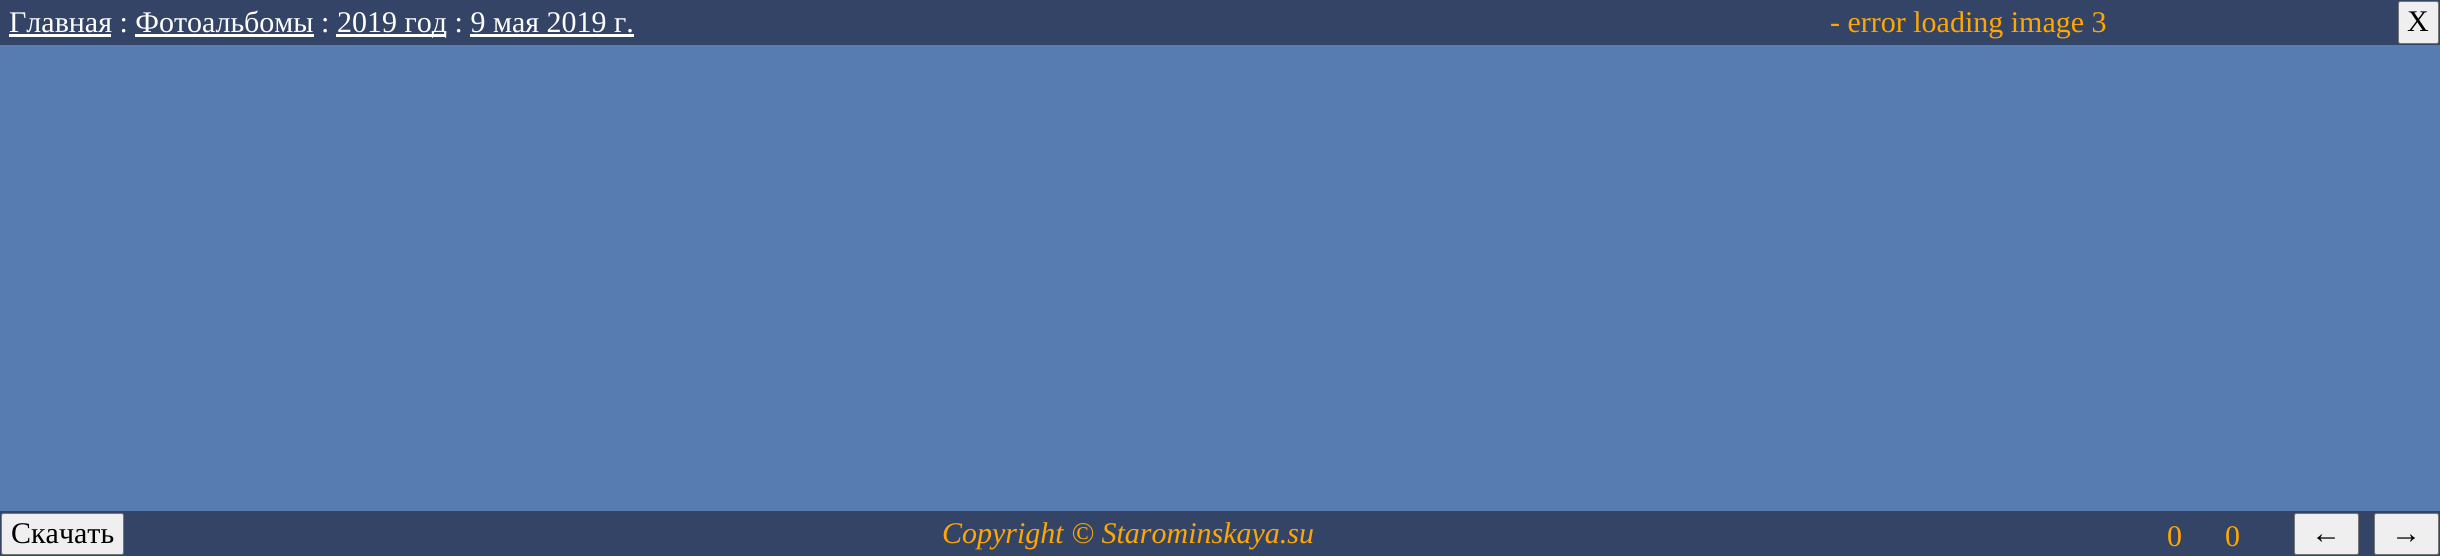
import math
import cairo


def round_path(ctx, x, y, w, h, r):
	ctx.new_sub_path()
	for i, (u, v) in enumerate([(x + w - r, y + h - r), (x + r, y + h - r), (x + r, y + r), (x + w - r, y + r)]):
		ctx.arc(u, v, r, i * math.pi / 2, (i + 1) * math.pi / 2)
	ctx.close_path()

def draw(ctx):
	ctx.set_source_rgb(0.337, 0.486, 0.698)
	ctx.paint()
	ctx.set_source_rgb(0.204, 0.267, 0.4)
	ctx.rectangle(0, 0, 2440, 45)
	ctx.fill()
	ctx.select_font_face('Liberation Serif')
	ctx.set_font_size(30)
	ctx.set_source_rgb(1, 1, 1)
	ctx.move_to(9, 32)
	ctx.show_text('Главная : Фотоальбомы :')
	ctx.rectangle(9, 34, 102, 3)
	ctx.fill()
	ctx.rectangle(336, 34, 110, 3)
	ctx.fill()
	ctx.move_to(337, 32)
	ctx.show_text('2019 год : 9 мая 2019 г.')
	ctx.rectangle(135, 34, 179, 3)
	ctx.fill()
	ctx.rectangle(470, 34, 164, 3)
	ctx.fill()
	ctx.set_source_rgb(1, 0.655, 0)
	ctx.move_to(1830, 32)
	ctx.show_text('- error loading image 3')
	ctx.set_source_rgb(0.937, 0.937, 0.937)
	round_path(ctx, 2398.5, 1.5, 40, 42, 2)
	ctx.fill_preserve()
	ctx.set_source_rgb(0.463, 0.463, 0.463)
	ctx.set_line_width(1)
	ctx.stroke()
	ctx.set_source_rgb(0, 0, 0)
	ctx.move_to(2407, 31)
	ctx.show_text('X')
	ctx.set_source_rgb(0.204, 0.267, 0.4)
	ctx.rectangle(0, 511, 2440, 45)
	ctx.fill()
	ctx.set_source_rgb(0.937, 0.937, 0.937)
	round_path(ctx, 1.5, 513.5, 122, 41, 2)
	ctx.fill_preserve()
	ctx.set_source_rgb(0.463, 0.463, 0.463)
	ctx.stroke()
	ctx.set_source_rgb(0, 0, 0)
	ctx.move_to(11, 543)
	ctx.show_text('Скачать')
	ctx.select_font_face('Liberation Serif', cairo.FONT_SLANT_ITALIC)
	ctx.set_source_rgb(1, 0.655, 0)
	ctx.move_to(942, 543)
	ctx.show_text('Copyright © Starominskaya.su')
	ctx.select_font_face('Liberation Serif')
	ctx.move_to(2167, 546)
	ctx.show_text('0')
	ctx.move_to(2225, 546)
	ctx.show_text('0')
	ctx.set_source_rgb(0.937, 0.937, 0.937)
	round_path(ctx, 2294.5, 513.5, 64, 41, 2)
	ctx.fill_preserve()
	ctx.set_source_rgb(0.463, 0.463, 0.463)
	ctx.stroke()
	ctx.set_source_rgb(0, 0, 0)
	ctx.move_to(2311, 543)
	ctx.show_text('←')
	ctx.set_source_rgb(0.937, 0.937, 0.937)
	round_path(ctx, 2374.5, 513.5, 64, 41, 2)
	ctx.fill_preserve()
	ctx.set_source_rgb(0.463, 0.463, 0.463)
	ctx.stroke()
	ctx.set_source_rgb(0, 0, 0)
	ctx.move_to(2391, 543)
	ctx.show_text('→')


surface = cairo.ImageSurface(cairo.FORMAT_RGB24, 2440, 556)
ctx = cairo.Context(surface)
options = cairo.FontOptions()
options.set_hint_metrics(cairo.HINT_METRICS_OFF)
options.set_hint_style(cairo.HINT_STYLE_NONE)
ctx.set_font_options(options)
ctx.set_miter_limit(4)
draw(ctx)
surface.write_to_png('image.png')
